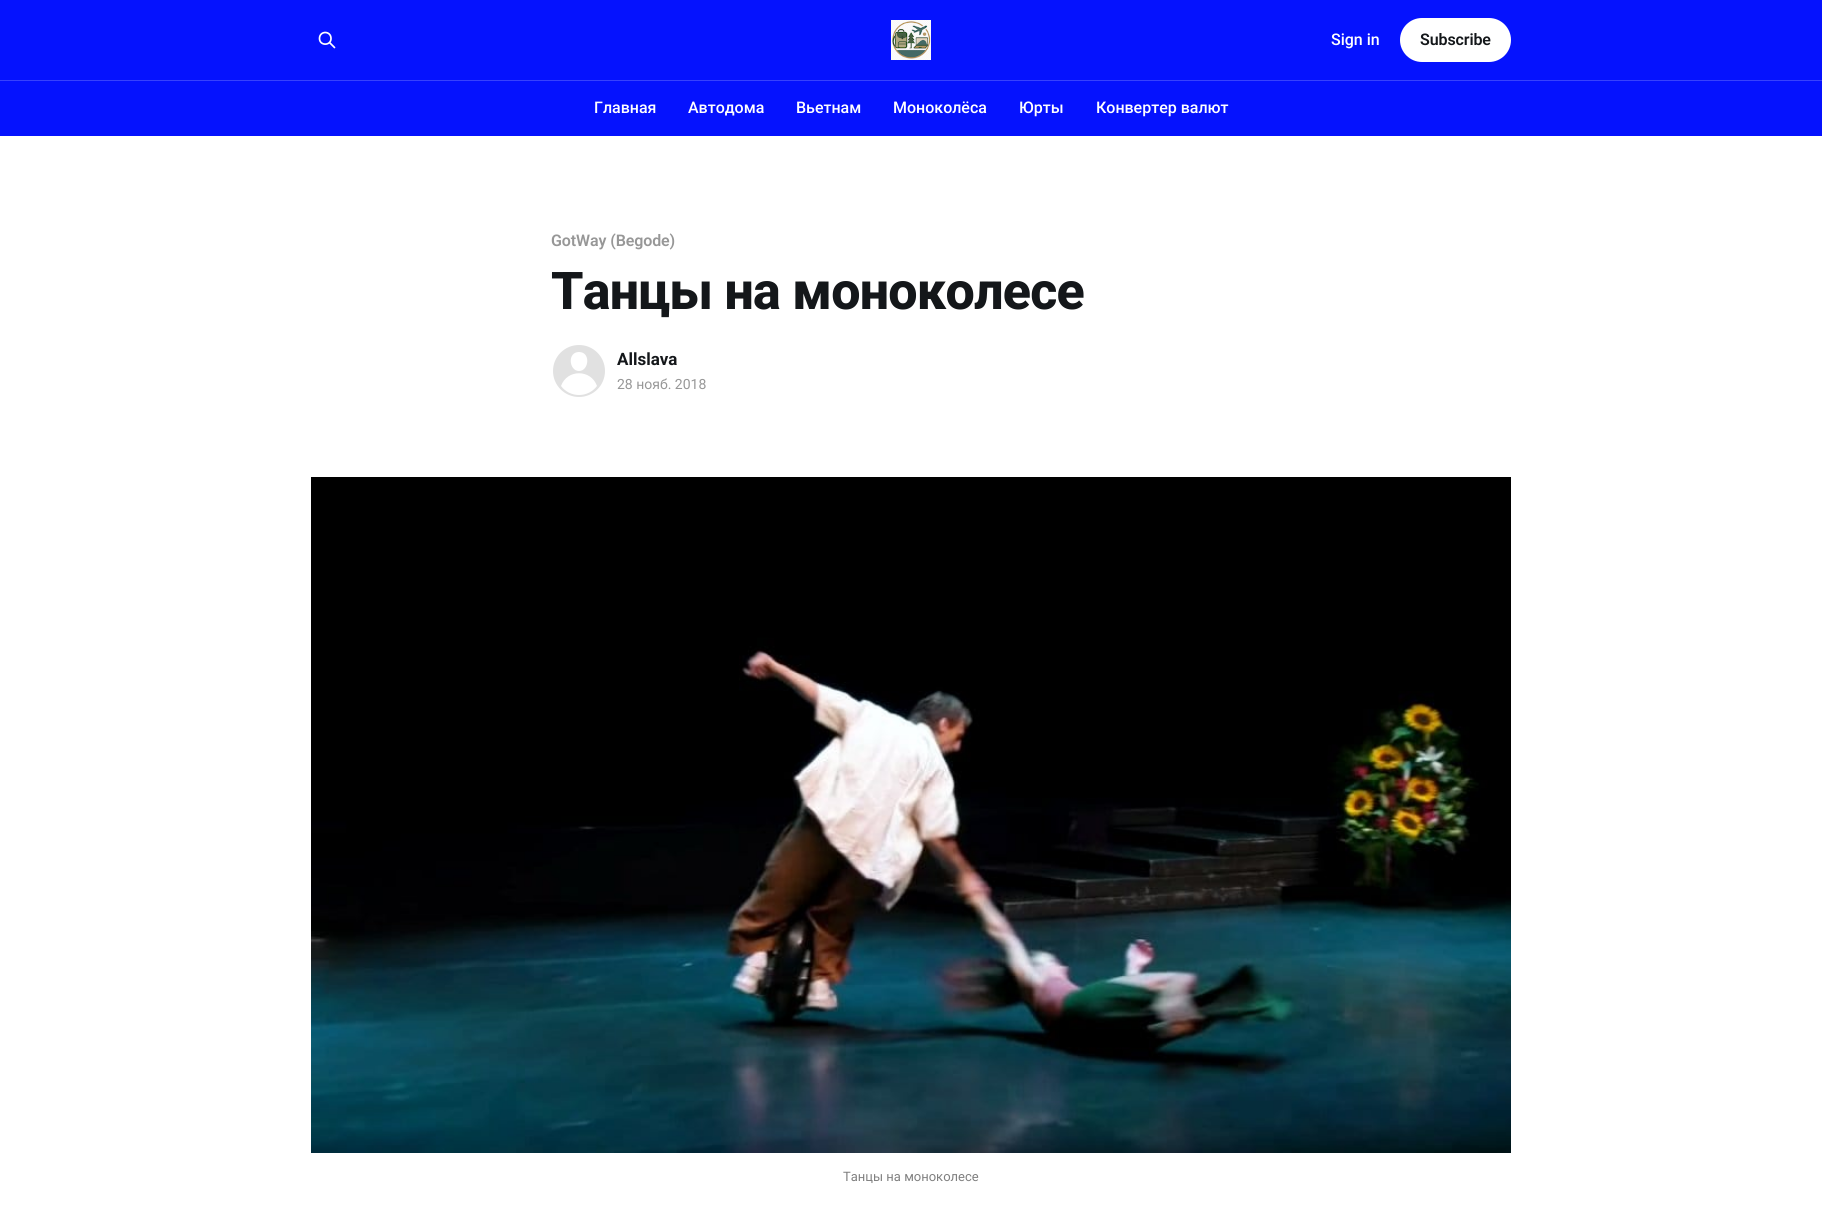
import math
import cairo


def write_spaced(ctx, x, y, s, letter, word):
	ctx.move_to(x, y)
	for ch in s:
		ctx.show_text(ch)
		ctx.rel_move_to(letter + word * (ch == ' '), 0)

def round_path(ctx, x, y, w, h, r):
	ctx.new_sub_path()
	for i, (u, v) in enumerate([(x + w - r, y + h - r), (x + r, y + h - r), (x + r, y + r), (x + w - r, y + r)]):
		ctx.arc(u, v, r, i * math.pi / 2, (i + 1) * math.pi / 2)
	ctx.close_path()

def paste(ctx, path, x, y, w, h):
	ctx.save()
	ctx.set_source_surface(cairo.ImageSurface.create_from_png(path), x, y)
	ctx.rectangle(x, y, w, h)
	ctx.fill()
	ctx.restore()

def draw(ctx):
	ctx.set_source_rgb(1, 1, 1)
	ctx.paint()
	ctx.set_source_rgb(0.02, 0.071, 0.996)
	ctx.rectangle(0, 0, 1822, 136)
	ctx.fill()
	paste(ctx, 'media/1.png', 891, 20, 40, 40)
	ctx.new_path()
	ctx.move_to(334.5, 47.5)
	ctx.line_to(329.5, 42.5)
	ctx.move_to(331, 38.5)
	ctx.curve_to(331, 46, 319.5, 46, 319.5, 38.5)
	ctx.curve_to(319.5, 30.5, 331, 30.5, 331, 38.5)
	ctx.close_path()
	ctx.set_source_rgb(1, 1, 1)
	ctx.set_line_width(1.7)
	ctx.set_line_cap(cairo.LINE_CAP_ROUND)
	ctx.set_line_join(cairo.LINE_JOIN_ROUND)
	ctx.stroke()
	ctx.select_font_face('Roboto Medium')
	ctx.set_font_size(16)
	ctx.move_to(1331, 45)
	ctx.show_text('Sign in')
	round_path(ctx, 1400, 18, 111, 44, 22)
	ctx.fill()
	ctx.select_font_face('Roboto SemiBold')
	ctx.set_source_rgb(0.082, 0.09, 0.102)
	write_spaced(ctx, 1420, 45, 'Subscribe', -0.1, 0)
	ctx.set_source_rgb(0.216, 0.255, 0.996)
	ctx.rectangle(0, 80, 1822, 1)
	ctx.fill()
	ctx.select_font_face('Roboto Medium')
	ctx.set_source_rgb(1, 1, 1)
	for x, y, s in [
		(594, 113, 'Главная'),
		(688, 113, 'Автодома'),
		(796, 113, 'Вьетнам'),
		(893, 113, 'Моноколёса'),
		(1019, 113, 'Юрты'),
		(1096, 113, 'Конвертер валют'),
	]:
		ctx.move_to(x, y)
		ctx.show_text(s)
	ctx.select_font_face('Roboto SemiBold')
	ctx.set_source_rgb(0.592, 0.592, 0.592)
	write_spaced(ctx, 551, 246, 'GotWay (Begode)', -0.1, 0)
	ctx.select_font_face('Roboto ExtraBold')
	ctx.set_font_size(52)
	ctx.set_source_rgb(0.082, 0.09, 0.102)
	write_spaced(ctx, 551, 309, 'Танцы на моноколесе', -0.75, 0)
	ctx.set_source_rgb(0.882, 0.882, 0.882)
	ctx.new_path()
	ctx.arc(579, 371, 27, 0, 2 * math.pi)
	ctx.fill_preserve()
	ctx.set_source_rgb(1, 1, 1)
	ctx.set_line_width(2)
	ctx.set_line_cap(cairo.LINE_CAP_BUTT)
	ctx.set_line_join(cairo.LINE_JOIN_MITER)
	ctx.stroke()
	ctx.set_fill_rule(cairo.FILL_RULE_EVEN_ODD)
	ctx.new_path()
	ctx.move_to(561, 386)
	ctx.curve_to(567, 369, 591, 369, 597, 386)
	ctx.curve_to(588, 398, 570, 398, 561, 386)
	ctx.close_path()
	ctx.move_to(579, 371)
	ctx.curve_to(589, 371, 591, 352, 579, 352)
	ctx.curve_to(567, 352, 569, 371, 579, 371)
	ctx.close_path()
	ctx.fill()
	ctx.select_font_face('Roboto', cairo.FONT_SLANT_NORMAL, cairo.FONT_WEIGHT_BOLD)
	ctx.set_font_size(17)
	ctx.set_source_rgb(0.082, 0.09, 0.102)
	ctx.move_to(617, 365)
	ctx.show_text('Allslava')
	ctx.select_font_face('Roboto')
	ctx.set_font_size(14)
	ctx.set_source_rgb(0.592, 0.592, 0.592)
	ctx.move_to(617, 389)
	ctx.show_text('28 нояб. 2018')
	paste(ctx, 'media/2.png', 311, 477, 1200, 676)
	ctx.set_font_size(13)
	ctx.set_source_rgb(0.502, 0.502, 0.502)
	ctx.move_to(843, 1181)
	ctx.show_text('Танцы на моноколесе')


surface = cairo.ImageSurface(cairo.FORMAT_RGB24, 1822, 1211)
ctx = cairo.Context(surface)
options = cairo.FontOptions()
options.set_hint_metrics(cairo.HINT_METRICS_OFF)
options.set_hint_style(cairo.HINT_STYLE_NONE)
ctx.set_font_options(options)
ctx.set_miter_limit(4)
draw(ctx)
surface.write_to_png('image.png')
